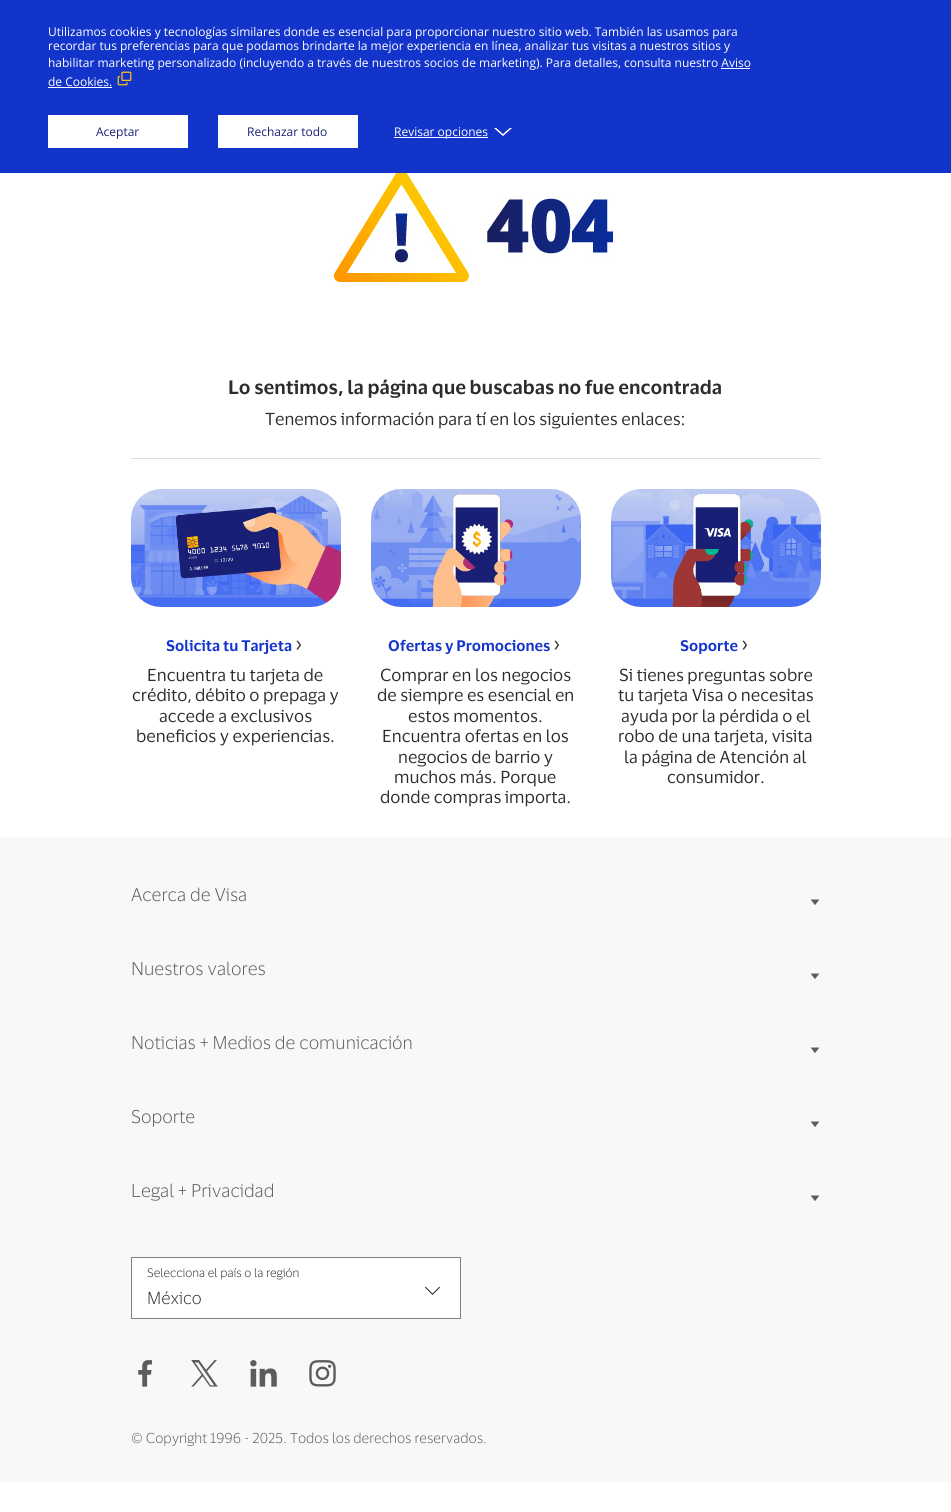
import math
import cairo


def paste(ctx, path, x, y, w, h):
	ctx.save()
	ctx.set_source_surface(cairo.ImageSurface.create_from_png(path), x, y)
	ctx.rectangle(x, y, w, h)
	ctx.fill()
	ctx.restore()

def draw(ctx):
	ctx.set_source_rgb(1, 1, 1)
	ctx.paint()
	ctx.set_source_rgb(0.078, 0.204, 0.796)
	ctx.rectangle(0, 0, 951, 173)
	ctx.fill()
	ctx.select_font_face('Open Sans')
	ctx.set_font_size(12)
	ctx.set_source_rgb(1, 1, 1)
	for x, y, s in [
		(48, 36, 'Utilizamos cookies y tecnologías similares donde es esencial para proporcionar nuestro sitio web. También las usamos para'),
		(48, 50, 'recordar tus preferencias para que podamos brindarte la mejor experiencia en línea, analizar tus visitas a nuestros sitios y'),
		(48, 67, 'habilitar marketing personalizado (incluyendo a través de nuestros socios de marketing). Para detalles, consulta nuestro Aviso'),
		(48, 86, 'de Cookies.'),
	]:
		ctx.move_to(x, y)
		ctx.show_text(s)
	ctx.rectangle(721, 68, 29, 1)
	ctx.fill()
	ctx.rectangle(48, 87, 64, 1)
	ctx.fill()
	paste(ctx, 'media/1.png', 117, 71, 15, 15)
	ctx.rectangle(48, 115, 140, 33)
	ctx.fill()
	ctx.set_source_rgb(0.102, 0.122, 0.447)
	ctx.move_to(96, 136)
	ctx.show_text('Aceptar')
	ctx.set_source_rgb(1, 1, 1)
	ctx.rectangle(218, 115, 140, 33)
	ctx.fill()
	ctx.set_source_rgb(0.102, 0.122, 0.447)
	ctx.move_to(247, 136)
	ctx.show_text('Rechazar todo')
	ctx.set_source_rgb(1, 1, 1)
	ctx.rectangle(394, 137, 94, 1)
	ctx.fill()
	ctx.move_to(394, 136)
	ctx.show_text('Revisar opciones')
	paste(ctx, 'media/2.png', 494, 128, 18, 8)
	paste(ctx, 'media/3.png', 334, 173, 279, 109)
	ctx.select_font_face('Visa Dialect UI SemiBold')
	ctx.set_font_size(19)
	ctx.set_source_rgb(0.173, 0.173, 0.173)
	ctx.move_to(228, 394)
	ctx.show_text('Lo sentimos, la página que buscabas no fue encontrada')
	ctx.select_font_face('Visa Dialect UI')
	ctx.set_font_size(17)
	ctx.move_to(265, 425)
	ctx.show_text('Tenemos información para tí en los siguientes enlaces:')
	ctx.set_source_rgb(0.871, 0.871, 0.871)
	ctx.rectangle(131, 458, 690, 1)
	ctx.fill()
	paste(ctx, 'media/4.png', 131, 489, 210, 118)
	ctx.select_font_face('Visa Dialect UI SemiBold')
	ctx.set_font_size(15)
	ctx.set_source_rgb(0.078, 0.204, 0.796)
	ctx.move_to(166, 651)
	ctx.show_text('Solicita tu Tarjeta')
	paste(ctx, 'media/5.png', 296, 640, 6, 10)
	ctx.select_font_face('Visa Dialect UI')
	ctx.set_font_size(17)
	ctx.set_source_rgb(0.173, 0.173, 0.173)
	for x, y, s in [
		(147, 681, 'Encuentra tu tarjeta de'),
		(132, 701, 'crédito, débito o prepaga y'),
		(159, 722, 'accede a exclusivos'),
		(136, 742, 'beneficios y experiencias.'),
	]:
		ctx.move_to(x, y)
		ctx.show_text(s)
	paste(ctx, 'media/6.png', 371, 489, 210, 118)
	ctx.select_font_face('Visa Dialect UI SemiBold')
	ctx.set_font_size(15)
	ctx.set_source_rgb(0.078, 0.204, 0.796)
	ctx.move_to(388, 651)
	ctx.show_text('Ofertas y Promociones')
	paste(ctx, 'media/5.png', 554, 640, 6, 10)
	ctx.select_font_face('Visa Dialect UI')
	ctx.set_font_size(17)
	ctx.set_source_rgb(0.173, 0.173, 0.173)
	for x, y, s in [
		(380, 681, 'Comprar en los negocios'),
		(377, 701, 'de siempre es esencial en'),
		(408, 722, 'estos momentos.'),
		(382, 742, 'Encuentra ofertas en los'),
		(398, 763, 'negocios de barrio y'),
		(394, 783, 'muchos más. Porque'),
		(380, 803, 'donde compras importa.'),
	]:
		ctx.move_to(x, y)
		ctx.show_text(s)
	paste(ctx, 'media/7.png', 611, 489, 210, 118)
	ctx.select_font_face('Visa Dialect UI SemiBold')
	ctx.set_font_size(15)
	ctx.set_source_rgb(0.078, 0.204, 0.796)
	ctx.move_to(680, 651)
	ctx.show_text('Soporte')
	paste(ctx, 'media/5.png', 742, 640, 6, 10)
	ctx.select_font_face('Visa Dialect UI')
	ctx.set_font_size(17)
	ctx.set_source_rgb(0.173, 0.173, 0.173)
	for x, y, s in [
		(619, 681, 'Si tienes preguntas sobre'),
		(618, 701, 'tu tarjeta Visa o necesitas'),
		(621, 722, 'ayuda por la pérdida o el'),
		(618, 742, 'robo de una tarjeta, visita'),
		(624, 763, 'la página de Atención al'),
		(667, 783, 'consumidor.'),
	]:
		ctx.move_to(x, y)
		ctx.show_text(s)
	ctx.set_source_rgb(0.969, 0.969, 0.969)
	ctx.rectangle(0, 837, 951, 645)
	ctx.fill()
	ctx.select_font_face('Visa Dialect UI Light')
	ctx.set_font_size(18)
	ctx.set_source_rgb(0.361, 0.361, 0.361)
	ctx.move_to(131, 901)
	ctx.show_text('Acerca de Visa')
	paste(ctx, 'media/8.png', 810, 899, 10, 6)
	ctx.move_to(131, 975)
	ctx.show_text('Nuestros valores')
	paste(ctx, 'media/8.png', 810, 973, 10, 6)
	ctx.move_to(131, 1049)
	ctx.show_text('Noticias + Medios de comunicación')
	paste(ctx, 'media/8.png', 810, 1047, 10, 6)
	ctx.move_to(131, 1123)
	ctx.show_text('Soporte')
	paste(ctx, 'media/8.png', 810, 1121, 10, 6)
	ctx.move_to(131, 1197)
	ctx.show_text('Legal + Privacidad')
	paste(ctx, 'media/8.png', 810, 1195, 10, 6)
	ctx.set_source_rgb(1, 1, 1)
	ctx.rectangle(131.5, 1257.5, 329, 61)
	ctx.fill_preserve()
	ctx.set_source_rgb(0.502, 0.502, 0.502)
	ctx.set_line_width(1)
	ctx.stroke()
	ctx.set_font_size(12)
	ctx.set_source_rgb(0.173, 0.173, 0.173)
	ctx.move_to(147, 1277)
	ctx.show_text('Selecciona el país o la región')
	ctx.set_font_size(17)
	ctx.move_to(147, 1304)
	ctx.show_text('México')
	paste(ctx, 'media/9.png', 425, 1286, 15, 9)
	paste(ctx, 'media/10.png', 138, 1360, 14, 27)
	paste(ctx, 'media/11.png', 191, 1360, 27, 27)
	paste(ctx, 'media/12.png', 250, 1360, 27, 27)
	paste(ctx, 'media/13.png', 309, 1360, 27, 27)
	ctx.set_font_size(14)
	ctx.set_source_rgb(0.361, 0.361, 0.361)
	ctx.move_to(131, 1443)
	ctx.show_text('© Copyright 1996 - 2025. Todos los derechos reservados.')


surface = cairo.ImageSurface(cairo.FORMAT_RGB24, 951, 1512)
ctx = cairo.Context(surface)
options = cairo.FontOptions()
options.set_hint_metrics(cairo.HINT_METRICS_OFF)
options.set_hint_style(cairo.HINT_STYLE_NONE)
ctx.set_font_options(options)
ctx.set_miter_limit(4)
draw(ctx)
surface.write_to_png('image.png')
